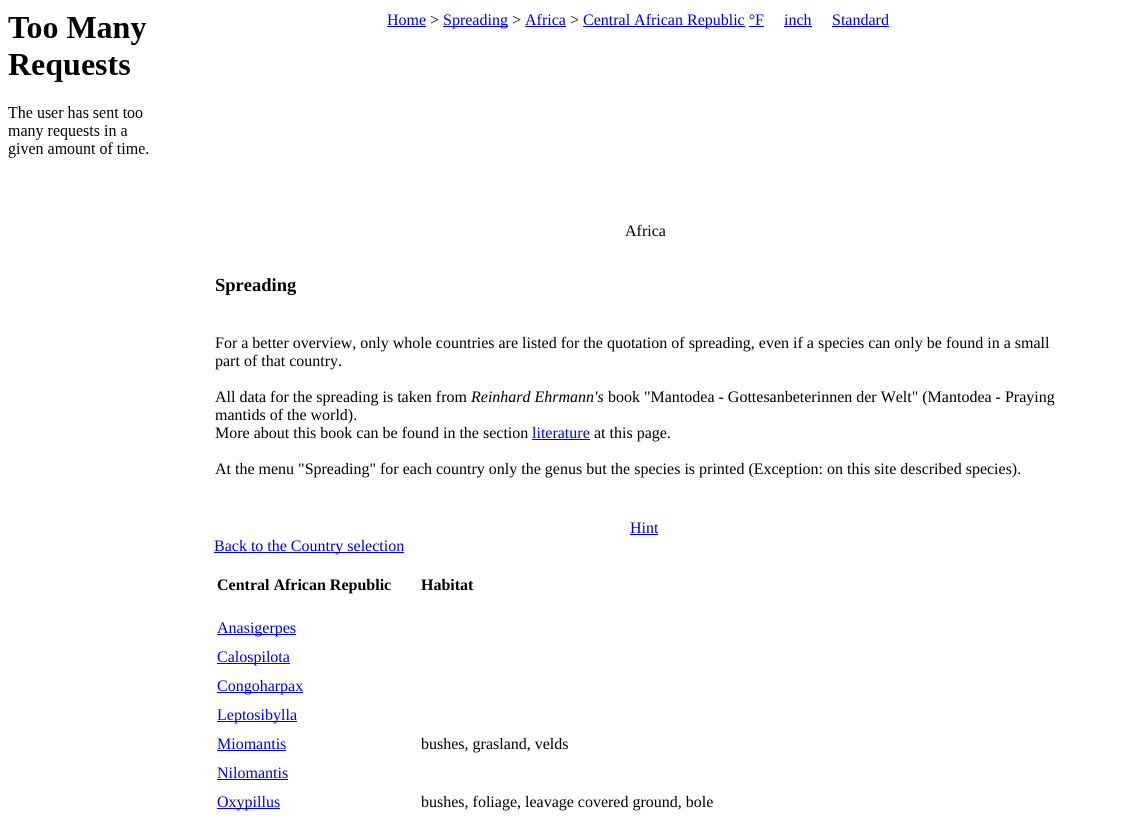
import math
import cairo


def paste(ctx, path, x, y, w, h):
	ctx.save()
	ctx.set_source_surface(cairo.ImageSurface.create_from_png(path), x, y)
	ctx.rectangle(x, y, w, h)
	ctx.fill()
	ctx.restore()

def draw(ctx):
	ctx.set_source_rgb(1, 1, 1)
	ctx.paint()
	paste(ctx, 'media/1.png', 8, 17, 141, 141)
	ctx.select_font_face('Liberation Serif')
	ctx.set_font_size(16)
	ctx.set_source_rgb(0, 0, 0.933)
	ctx.move_to(387, 25)
	ctx.show_text('Home')
	ctx.rectangle(387, 26, 39, 1)
	ctx.fill()
	ctx.set_source_rgb(0, 0, 0)
	ctx.move_to(430, 25)
	ctx.show_text('>')
	ctx.set_source_rgb(0, 0, 0.933)
	ctx.rectangle(443, 26, 65, 1)
	ctx.fill()
	ctx.move_to(443, 25)
	ctx.show_text('Spreading')
	ctx.set_source_rgb(0, 0, 0)
	ctx.move_to(512, 25)
	ctx.show_text('>')
	ctx.set_source_rgb(0, 0, 0.933)
	ctx.move_to(525, 25)
	ctx.show_text('Africa')
	ctx.rectangle(525, 26, 41, 1)
	ctx.fill()
	ctx.set_source_rgb(0, 0, 0)
	ctx.move_to(570, 25)
	ctx.show_text('>')
	ctx.set_source_rgb(0, 0, 0.933)
	ctx.rectangle(583, 26, 162, 1)
	ctx.fill()
	ctx.move_to(583, 25)
	ctx.show_text('Central African Republic °F')
	ctx.move_to(784, 25)
	ctx.show_text('inch')
	ctx.rectangle(784, 26, 28, 1)
	ctx.fill()
	ctx.move_to(832, 25)
	ctx.show_text('Standard')
	ctx.rectangle(832, 26, 57, 1)
	ctx.fill()
	ctx.rectangle(749, 26, 15, 1)
	ctx.fill()
	ctx.set_source_rgb(0, 0, 0)
	ctx.move_to(625, 236)
	ctx.show_text('Africa')
	ctx.select_font_face('Liberation Serif', cairo.FONT_SLANT_NORMAL, cairo.FONT_WEIGHT_BOLD)
	ctx.set_font_size(18.5)
	ctx.move_to(215, 291)
	ctx.show_text('Spreading')
	ctx.select_font_face('Liberation Serif')
	ctx.set_font_size(16)
	for x, y, s in [
		(215, 348, 'For a better overview, only whole countries are listed for the quotation of spreading, even if a species can only be found in a small'),
		(215, 366, 'part of that country.'),
		(215, 402, 'All data for the spreading is taken from'),
	]:
		ctx.move_to(x, y)
		ctx.show_text(s)
	ctx.select_font_face('Liberation Serif', cairo.FONT_SLANT_ITALIC)
	ctx.move_to(471, 402)
	ctx.show_text('Reinhard Ehrmann\'s')
	ctx.select_font_face('Liberation Serif')
	for x, y, s in [
		(608, 402, 'book "Mantodea - Gottesanbeterinnen der Welt" (Mantodea - Praying'),
		(215, 420, 'mantids of the world).'),
		(215, 438, 'More about this book can be found in the section'),
	]:
		ctx.move_to(x, y)
		ctx.show_text(s)
	ctx.set_source_rgb(0, 0, 0.933)
	ctx.move_to(532, 438)
	ctx.show_text('literature')
	ctx.rectangle(532, 439, 58, 1)
	ctx.fill()
	ctx.set_source_rgb(0, 0, 0)
	ctx.move_to(594, 438)
	ctx.show_text('at this page.')
	ctx.move_to(215, 474)
	ctx.show_text('At the menu "Spreading" for each country only the genus but the species is printed (Exception: on this site described species).')
	ctx.set_source_rgb(0, 0, 0.933)
	ctx.move_to(630, 533)
	ctx.show_text('Hint')
	ctx.rectangle(630, 534, 28, 1)
	ctx.fill()
	ctx.rectangle(214, 552, 190, 1)
	ctx.fill()
	ctx.move_to(214, 551)
	ctx.show_text('Back to the Country selection')
	ctx.select_font_face('Liberation Serif', cairo.FONT_SLANT_NORMAL, cairo.FONT_WEIGHT_BOLD)
	ctx.set_source_rgb(0, 0, 0)
	ctx.move_to(217, 590)
	ctx.show_text('Central African Republic')
	ctx.move_to(421, 590)
	ctx.show_text('Habitat')
	ctx.set_source_rgb(0, 0, 0.933)
	ctx.rectangle(217, 634, 79, 1)
	ctx.fill()
	ctx.select_font_face('Liberation Serif')
	ctx.move_to(217, 633)
	ctx.show_text('Anasigerpes')
	ctx.rectangle(217, 663, 73, 1)
	ctx.fill()
	ctx.move_to(217, 662)
	ctx.show_text('Calospilota')
	ctx.rectangle(217, 692, 86, 1)
	ctx.fill()
	ctx.move_to(217, 691)
	ctx.show_text('Congoharpax')
	ctx.rectangle(217, 721, 80, 1)
	ctx.fill()
	ctx.move_to(217, 720)
	ctx.show_text('Leptosibylla')
	ctx.move_to(217, 749)
	ctx.show_text('Miomantis')
	ctx.rectangle(217, 750, 69, 1)
	ctx.fill()
	ctx.set_source_rgb(0, 0, 0)
	ctx.move_to(421, 749)
	ctx.show_text('bushes, grasland, velds')
	ctx.set_source_rgb(0, 0, 0.933)
	ctx.move_to(217, 778)
	ctx.show_text('Nilomantis')
	ctx.rectangle(217, 779, 71, 1)
	ctx.fill()
	ctx.rectangle(217, 808, 63, 1)
	ctx.fill()
	ctx.move_to(217, 807)
	ctx.show_text('Oxypillus')
	ctx.set_source_rgb(0, 0, 0)
	ctx.move_to(421, 807)
	ctx.show_text('bushes, foliage, leavage covered ground, bole')


surface = cairo.ImageSurface(cairo.FORMAT_RGB24, 1126, 827)
ctx = cairo.Context(surface)
options = cairo.FontOptions()
options.set_hint_metrics(cairo.HINT_METRICS_OFF)
options.set_hint_style(cairo.HINT_STYLE_NONE)
ctx.set_font_options(options)
ctx.set_miter_limit(4)
draw(ctx)
surface.write_to_png('image.png')
